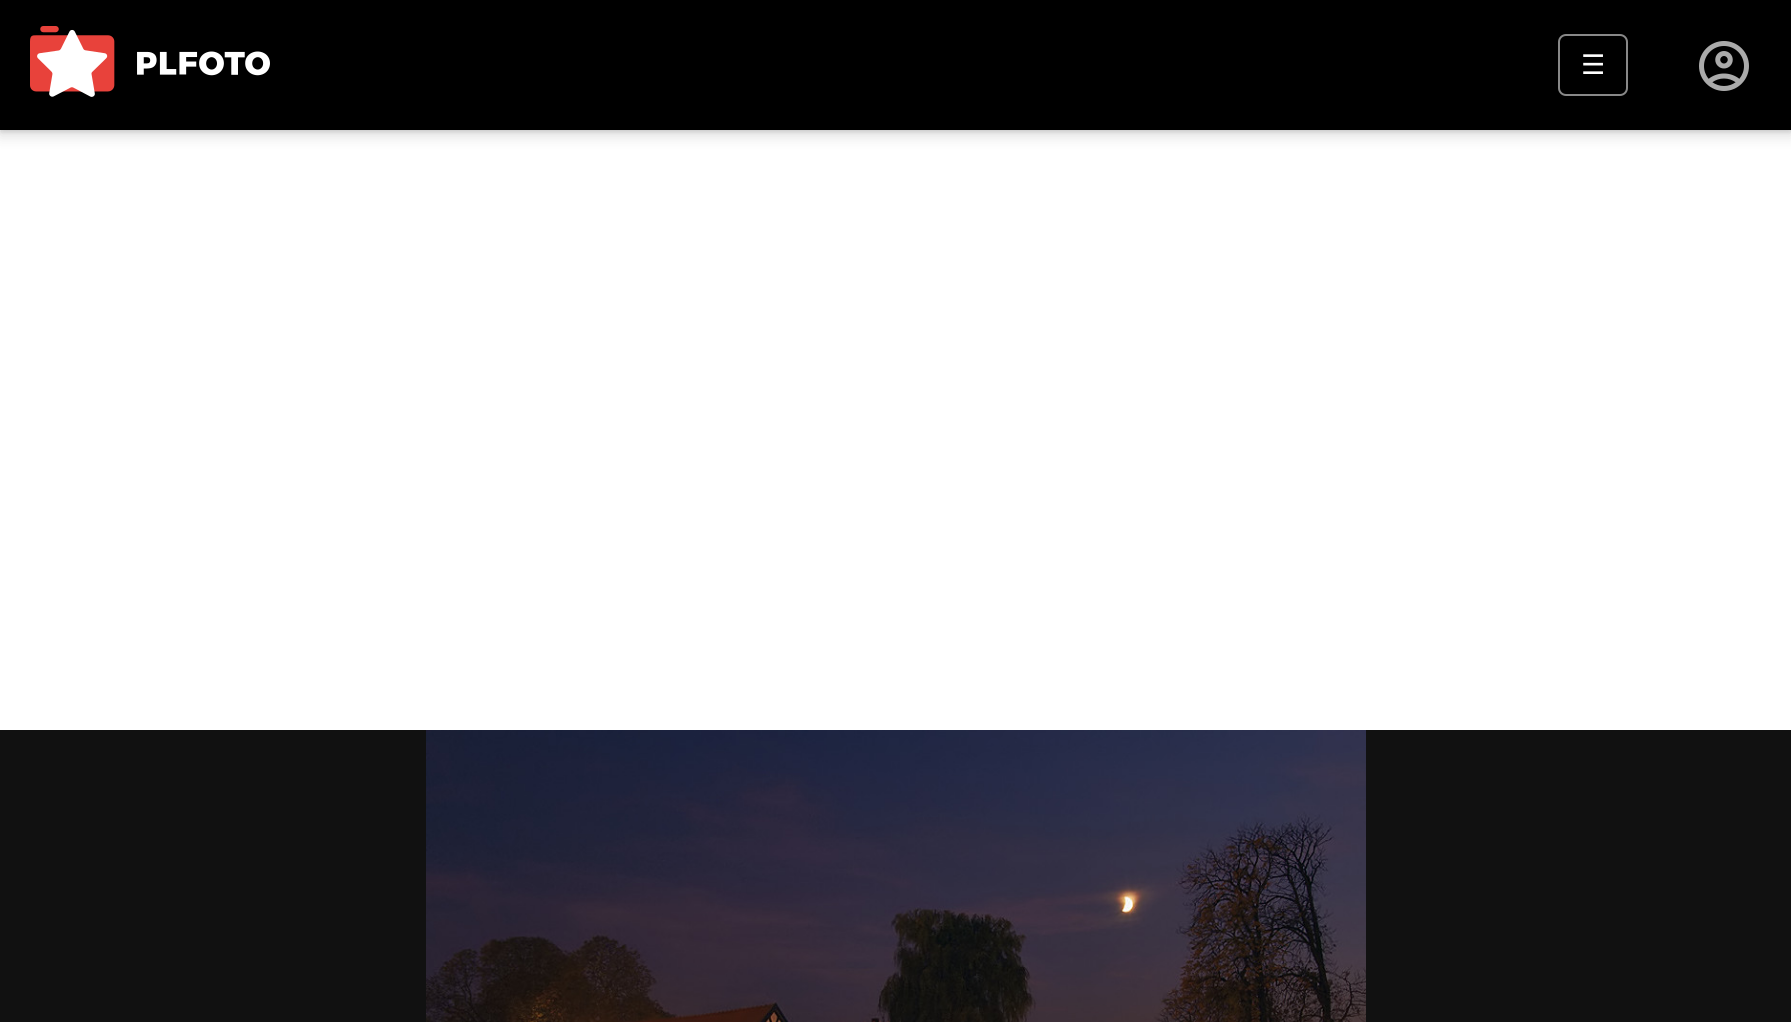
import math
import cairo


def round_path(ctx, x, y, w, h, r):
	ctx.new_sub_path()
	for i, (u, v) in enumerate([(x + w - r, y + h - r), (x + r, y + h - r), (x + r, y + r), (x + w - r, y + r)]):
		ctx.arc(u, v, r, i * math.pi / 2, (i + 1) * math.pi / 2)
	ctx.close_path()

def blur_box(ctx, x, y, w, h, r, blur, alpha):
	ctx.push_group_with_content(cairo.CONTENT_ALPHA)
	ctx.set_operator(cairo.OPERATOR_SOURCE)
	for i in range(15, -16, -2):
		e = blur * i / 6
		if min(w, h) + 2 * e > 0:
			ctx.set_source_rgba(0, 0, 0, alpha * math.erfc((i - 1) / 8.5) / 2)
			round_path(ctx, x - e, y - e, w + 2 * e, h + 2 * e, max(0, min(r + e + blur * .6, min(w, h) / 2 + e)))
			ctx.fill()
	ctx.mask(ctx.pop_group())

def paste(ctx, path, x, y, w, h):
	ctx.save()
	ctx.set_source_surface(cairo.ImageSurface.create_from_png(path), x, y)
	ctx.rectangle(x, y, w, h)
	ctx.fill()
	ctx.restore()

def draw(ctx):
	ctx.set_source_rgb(1, 1, 1)
	ctx.paint()
	ctx.set_source_rgb(0, 0, 0)
	blur_box(ctx, 0, 2, 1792, 130, 0, 2, 0.11)
	blur_box(ctx, 0, 6, 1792, 130, 0, 7, 0.13)
	ctx.set_source_rgb(0, 0, 0)
	ctx.rectangle(0, 0, 1791, 130)
	ctx.fill()
	paste(ctx, 'media/1.png', 30, 26, 240, 71)
	round_path(ctx, 1559, 35, 68, 60, 7)
	ctx.set_source_rgb(0.533, 0.533, 0.533)
	ctx.stroke()
	ctx.select_font_face('DejaVu Sans')
	ctx.set_font_size(27)
	ctx.set_source_rgb(1, 1, 1)
	ctx.move_to(1581, 74)
	ctx.show_text('☰')
	paste(ctx, 'media/2.png', 1699, 41, 50, 50)
	ctx.set_source_rgb(0.067, 0.067, 0.067)
	ctx.rectangle(0, 730, 1791, 292)
	ctx.fill()
	paste(ctx, 'media/3.png', 426, 730, 940, 292)


surface = cairo.ImageSurface(cairo.FORMAT_RGB24, 1791, 1022)
ctx = cairo.Context(surface)
options = cairo.FontOptions()
options.set_hint_metrics(cairo.HINT_METRICS_OFF)
options.set_hint_style(cairo.HINT_STYLE_NONE)
ctx.set_font_options(options)
ctx.set_miter_limit(4)
draw(ctx)
surface.write_to_png('image.png')
